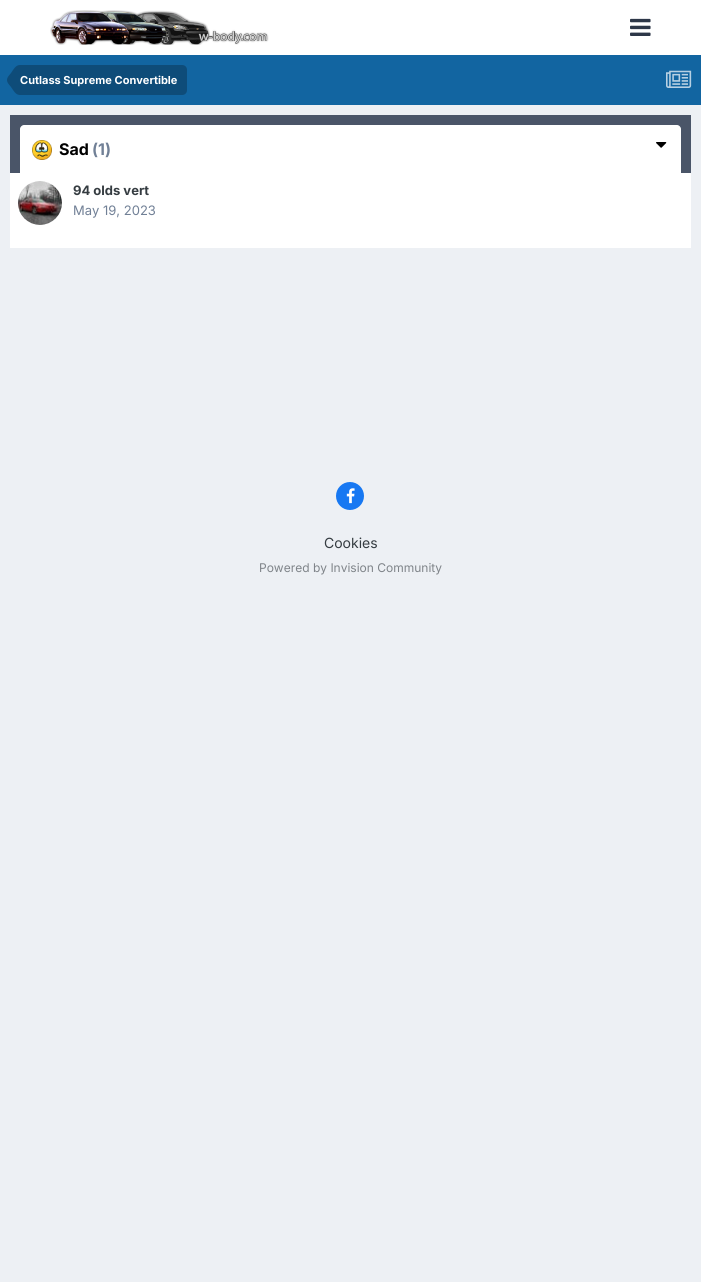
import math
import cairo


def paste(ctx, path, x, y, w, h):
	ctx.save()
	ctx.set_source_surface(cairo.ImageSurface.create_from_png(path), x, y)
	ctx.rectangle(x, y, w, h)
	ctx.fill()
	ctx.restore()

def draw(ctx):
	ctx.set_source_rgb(0.929, 0.941, 0.957)
	ctx.paint()
	ctx.set_source_rgb(1, 1, 1)
	ctx.rectangle(0, 0, 701, 55)
	ctx.fill()
	paste(ctx, 'media/1.png', 50, 10, 219, 35)
	paste(ctx, 'media/2.png', 630, 18, 21, 18)
	ctx.set_source_rgb(0.071, 0.396, 0.631)
	ctx.rectangle(0, 55, 701, 50)
	ctx.fill()
	ctx.set_source_rgb(0.055, 0.298, 0.475)
	ctx.new_path()
	ctx.move_to(20, 65)
	ctx.line_to(182, 65)
	ctx.curve_to(185, 65, 187, 67, 187, 70)
	ctx.line_to(187, 90)
	ctx.curve_to(187, 93, 185, 95, 182, 95)
	ctx.line_to(20, 95)
	ctx.close_path()
	ctx.fill()
	ctx.new_path()
	ctx.move_to(20, 80)
	ctx.line_to(20, 95)
	ctx.curve_to(15.5, 95, 13.5, 90.5, 11, 87)
	ctx.curve_to(9.5, 85, 7, 83, 7, 80)
	ctx.close_path()
	ctx.move_to(20, 80)
	ctx.line_to(7, 80)
	ctx.curve_to(7, 77, 9.5, 75, 11, 73)
	ctx.curve_to(13.5, 69.5, 15.5, 65, 20, 65)
	ctx.close_path()
	ctx.fill()
	ctx.select_font_face('Inter', cairo.FONT_SLANT_NORMAL, cairo.FONT_WEIGHT_BOLD)
	ctx.set_font_size(11)
	ctx.set_source_rgb(1, 1, 1)
	ctx.move_to(20, 84)
	ctx.show_text('Cutlass Supreme Convertible')
	paste(ctx, 'media/3.png', 666, 70, 26, 18)
	ctx.set_source_rgb(0.29, 0.333, 0.408)
	ctx.rectangle(10, 115, 681, 58)
	ctx.fill()
	ctx.set_source_rgb(1, 1, 1)
	ctx.new_path()
	ctx.move_to(24, 125)
	ctx.line_to(677, 125)
	ctx.curve_to(679, 125, 681, 127, 681, 129)
	ctx.line_to(681, 173)
	ctx.line_to(20, 173)
	ctx.line_to(20, 129)
	ctx.curve_to(20, 127, 22, 125, 24, 125)
	ctx.close_path()
	ctx.fill()
	paste(ctx, 'media/4.png', 32, 140, 20, 20)
	ctx.set_font_size(16)
	ctx.set_source_rgb(0, 0, 0)
	ctx.move_to(59, 155)
	ctx.show_text('Sad')
	ctx.set_source_rgb(0.443, 0.502, 0.588)
	ctx.move_to(92, 155)
	ctx.show_text('(1)')
	paste(ctx, 'media/5.png', 656, 142, 11, 6)
	ctx.set_source_rgb(1, 1, 1)
	ctx.rectangle(10, 173, 681, 75)
	ctx.fill()
	paste(ctx, 'media/6.png', 18, 181, 44, 44)
	ctx.set_font_size(13)
	ctx.set_source_rgb(0.208, 0.235, 0.255)
	ctx.move_to(73, 195)
	ctx.show_text('94 olds vert')
	ctx.select_font_face('Inter')
	ctx.set_source_rgb(0.443, 0.502, 0.588)
	ctx.move_to(73, 215)
	ctx.show_text('May 19, 2023')
	ctx.set_source_rgb(0.09, 0.471, 0.949)
	ctx.new_path()
	ctx.arc(350, 496, 14, 0, 2 * math.pi)
	ctx.fill()
	paste(ctx, 'media/7.png', 346, 488, 9, 16)
	ctx.set_font_size(14)
	ctx.set_source_rgb(0.208, 0.235, 0.255)
	ctx.move_to(324, 548)
	ctx.show_text('Cookies')
	ctx.set_font_size(12)
	ctx.set_source_rgb(0.498, 0.518, 0.537)
	ctx.move_to(259, 572)
	ctx.show_text('Powered by Invision Community')


surface = cairo.ImageSurface(cairo.FORMAT_RGB24, 701, 1282)
ctx = cairo.Context(surface)
options = cairo.FontOptions()
options.set_hint_metrics(cairo.HINT_METRICS_OFF)
options.set_hint_style(cairo.HINT_STYLE_NONE)
ctx.set_font_options(options)
ctx.set_miter_limit(4)
draw(ctx)
surface.write_to_png('image.png')
